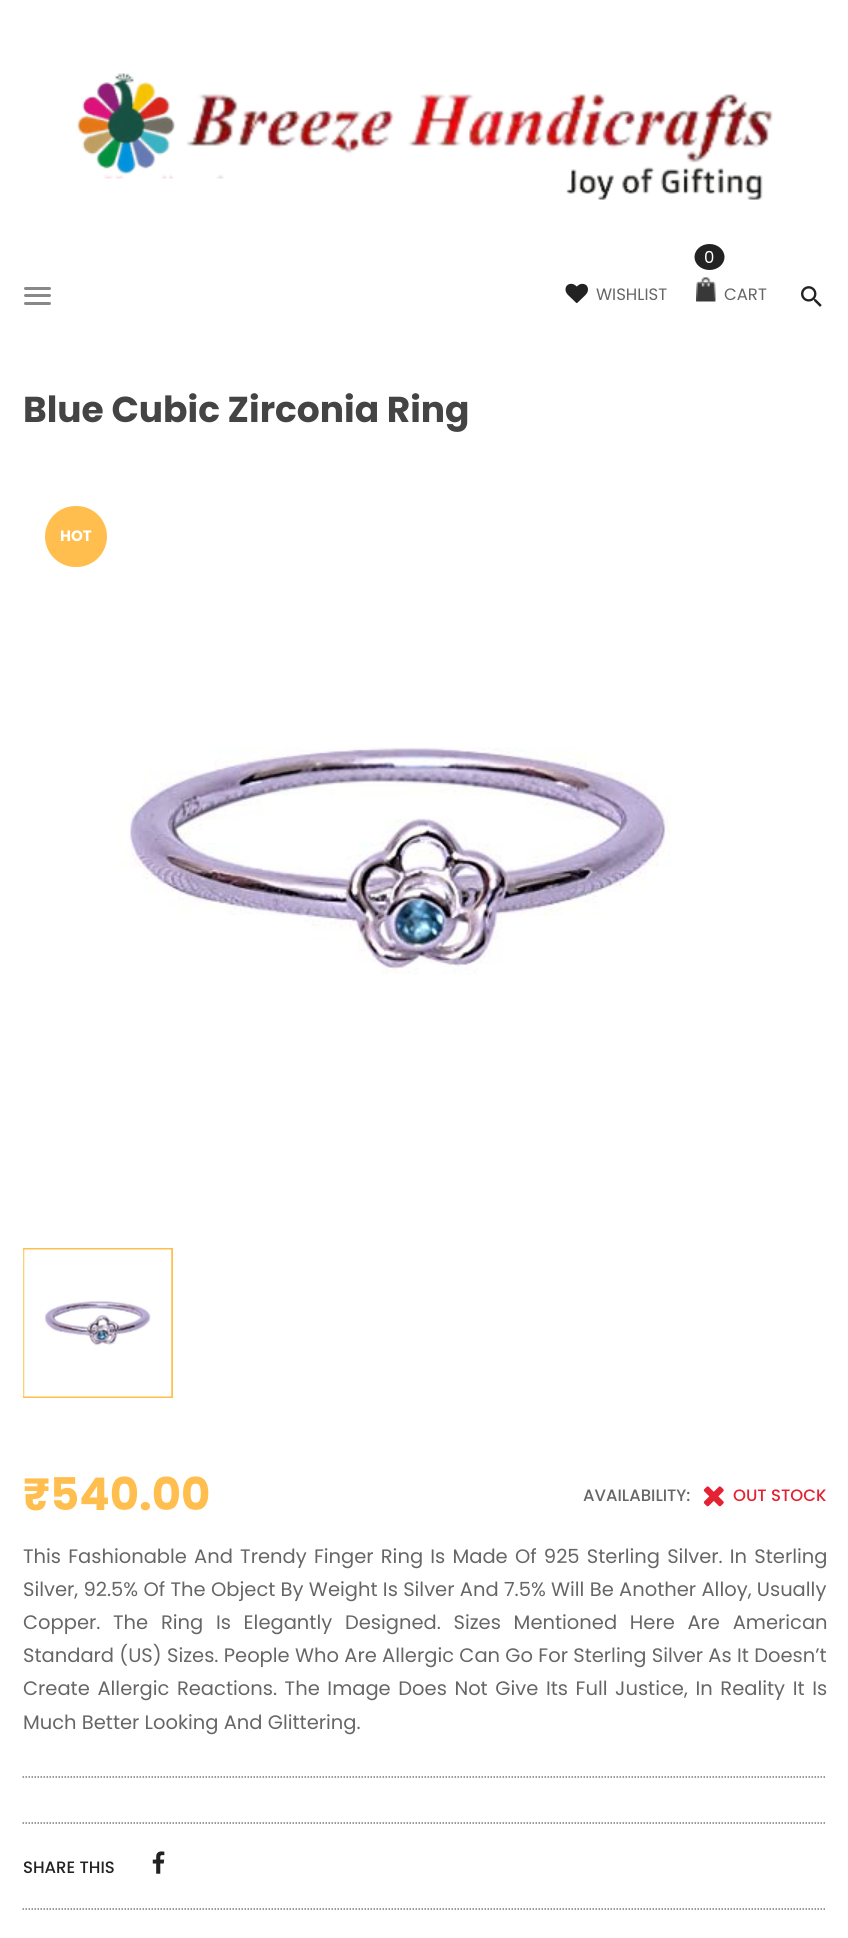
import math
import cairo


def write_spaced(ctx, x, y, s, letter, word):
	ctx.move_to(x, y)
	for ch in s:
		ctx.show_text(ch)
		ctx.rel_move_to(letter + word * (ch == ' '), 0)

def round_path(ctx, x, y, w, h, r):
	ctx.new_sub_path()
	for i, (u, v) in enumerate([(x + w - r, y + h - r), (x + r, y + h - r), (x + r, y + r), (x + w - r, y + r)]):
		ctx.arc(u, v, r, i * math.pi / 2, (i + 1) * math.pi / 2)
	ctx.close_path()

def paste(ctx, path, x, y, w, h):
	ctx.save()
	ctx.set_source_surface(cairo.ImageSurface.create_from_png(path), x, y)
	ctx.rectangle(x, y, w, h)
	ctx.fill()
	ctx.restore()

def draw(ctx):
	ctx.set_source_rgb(1, 1, 1)
	ctx.paint()
	paste(ctx, 'media/1.png', 77, 73, 696, 127)
	ctx.set_source_rgb(0.533, 0.533, 0.533)
	round_path(ctx, 24, 287, 27, 3, 1.5)
	ctx.fill()
	round_path(ctx, 24, 294, 27, 3, 1.5)
	ctx.fill()
	round_path(ctx, 24, 302, 27, 3, 1.5)
	ctx.fill()
	paste(ctx, 'media/2.png', 565, 283, 23, 21)
	ctx.select_font_face('Poppins')
	ctx.set_font_size(16.5)
	ctx.set_source_rgb(0.4, 0.4, 0.4)
	ctx.move_to(596, 300)
	ctx.show_text('WISHLIST')
	ctx.set_source_rgb(0.133, 0.133, 0.133)
	ctx.new_path()
	ctx.move_to(709.5, 244)
	ctx.curve_to(718, 244, 724.5, 250, 724.5, 257)
	ctx.curve_to(724.5, 264, 718, 270, 709.5, 270)
	ctx.curve_to(701, 270, 694.5, 264, 694.5, 257)
	ctx.curve_to(694.5, 250, 701, 244, 709.5, 244)
	ctx.close_path()
	ctx.fill()
	ctx.set_source_rgb(1, 1, 1)
	ctx.move_to(704, 263)
	ctx.show_text('0')
	paste(ctx, 'media/3.png', 696, 277, 20, 25)
	ctx.set_source_rgb(0.4, 0.4, 0.4)
	ctx.move_to(724, 300)
	ctx.show_text('CART')
	paste(ctx, 'media/4.png', 801, 286, 21, 21)
	ctx.select_font_face('Poppins', cairo.FONT_SLANT_NORMAL, cairo.FONT_WEIGHT_BOLD)
	ctx.set_font_size(36)
	ctx.set_source_rgb(0.267, 0.267, 0.267)
	ctx.move_to(23, 422)
	ctx.show_text('Blue Cubic Zirconia Ring')
	ctx.set_source_rgb(1, 0.745, 0.306)
	round_path(ctx, 45, 506, 62, 61, 30.5)
	ctx.fill()
	ctx.set_font_size(15)
	ctx.set_source_rgb(1, 1, 1)
	ctx.move_to(60, 541)
	ctx.show_text('HOT')
	paste(ctx, 'media/5.png', 118, 747, 553, 228)
	ctx.rectangle(24, 1249, 148, 148)
	ctx.set_source_rgb(1, 0.745, 0.306)
	ctx.stroke()
	paste(ctx, 'media/6.png', 23, 1249, 149, 148)
	ctx.set_font_size(45)
	ctx.move_to(23, 1510)
	ctx.show_text('₹540.00')
	ctx.select_font_face('Poppins Medium')
	ctx.set_font_size(16.5)
	ctx.set_source_rgb(0.4, 0.4, 0.4)
	ctx.move_to(583, 1501)
	ctx.show_text('AVAILABILITY:')
	paste(ctx, 'media/7.png', 703, 1486, 21, 21)
	ctx.set_source_rgb(0.894, 0.133, 0.204)
	ctx.move_to(733, 1501)
	ctx.show_text('OUT STOCK')
	ctx.new_path()
	ctx.move_to(22.5, 1777)
	ctx.line_to(826.5, 1777)
	ctx.set_source_rgb(0.475, 0.475, 0.475)
	ctx.set_line_width(1.5)
	ctx.set_dash([1.5, 1.5])
	ctx.stroke()
	ctx.select_font_face('Poppins')
	ctx.set_font_size(19.5)
	ctx.set_source_rgb(0.4, 0.4, 0.4)
	write_spaced(ctx, 23, 1563, 'This Fashionable And Trendy Finger Ring Is Made Of 925 Sterling Silver. In Sterling', 0, 2)
	write_spaced(ctx, 23, 1596, 'Silver, 92.5% Of The Object By Weight Is Silver And 7.5% Will Be Another Alloy, Usually', 0, 0.1)
	write_spaced(ctx, 23, 1629, 'Copper. The Ring Is Elegantly Designed. Sizes Mentioned Here Are American', 0, 7.5)
	write_spaced(ctx, 23, 1662, 'Standard (US) Sizes. People Who Are Allergic Can Go For Sterling Silver As It Doesn’t', 0, 0.1)
	write_spaced(ctx, 23, 1695, 'Create Allergic Reactions. The Image Does Not Give Its Full Justice, In Reality It Is', 0, 2.4)
	ctx.move_to(23, 1729)
	ctx.show_text('Much Better Looking And Glittering.')
	ctx.new_path()
	ctx.move_to(22.5, 1823)
	ctx.line_to(826.5, 1823)
	ctx.set_source_rgb(0.475, 0.475, 0.475)
	ctx.stroke()
	ctx.new_path()
	ctx.move_to(22.5, 1909)
	ctx.line_to(826.5, 1909)
	ctx.stroke()
	ctx.select_font_face('Poppins Medium')
	ctx.set_font_size(16.5)
	ctx.set_source_rgb(0.133, 0.133, 0.133)
	ctx.move_to(23, 1873)
	ctx.show_text('SHARE THIS')
	paste(ctx, 'media/8.png', 152, 1851, 13, 23)


surface = cairo.ImageSurface(cairo.FORMAT_RGB24, 848, 1938)
ctx = cairo.Context(surface)
options = cairo.FontOptions()
options.set_hint_metrics(cairo.HINT_METRICS_OFF)
options.set_hint_style(cairo.HINT_STYLE_NONE)
ctx.set_font_options(options)
ctx.set_miter_limit(4)
draw(ctx)
surface.write_to_png('image.png')
